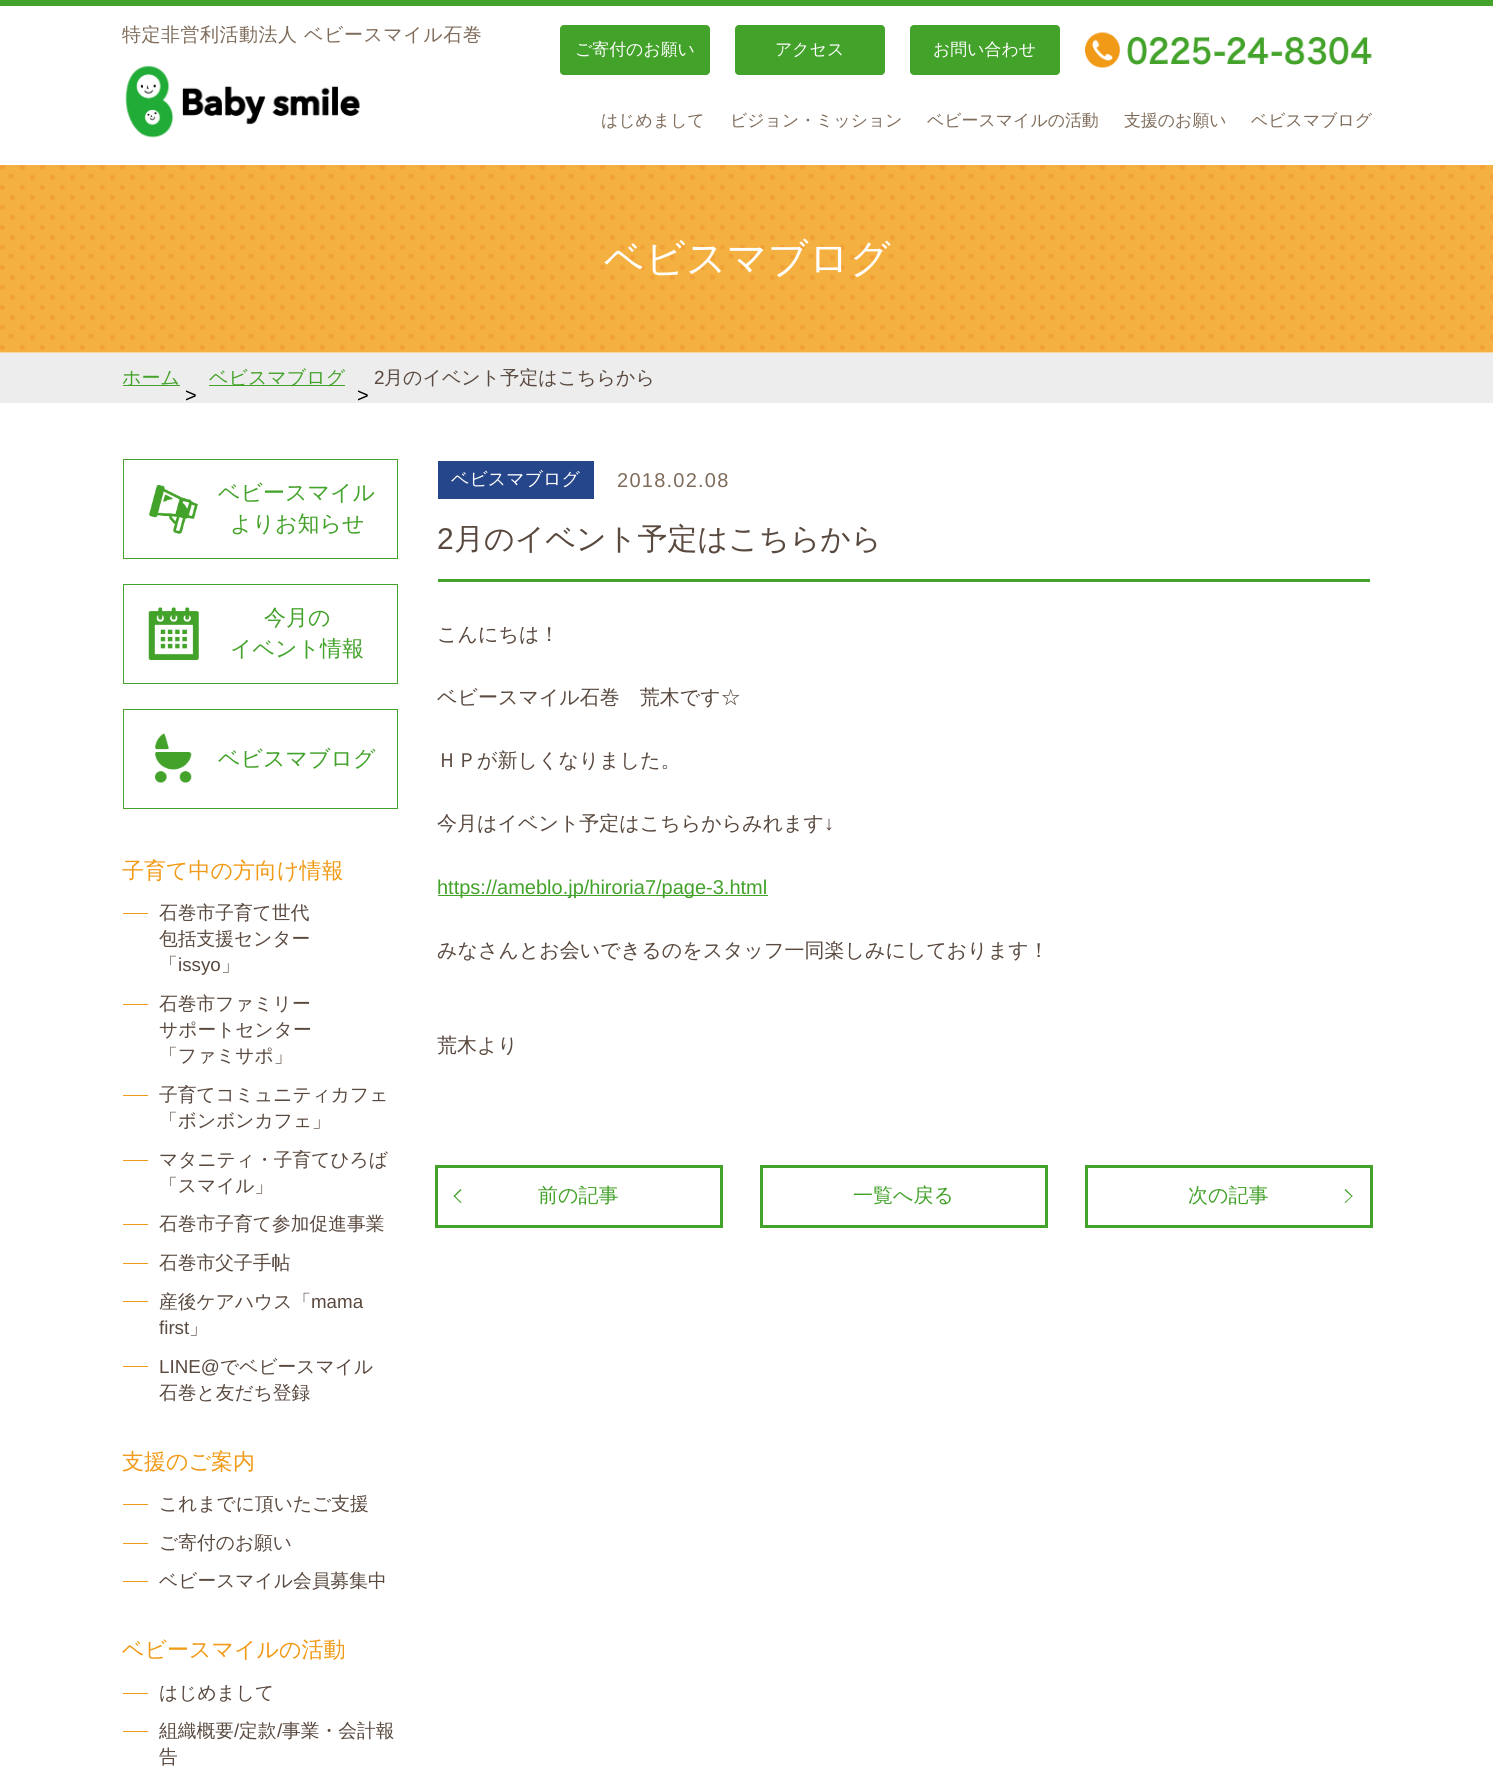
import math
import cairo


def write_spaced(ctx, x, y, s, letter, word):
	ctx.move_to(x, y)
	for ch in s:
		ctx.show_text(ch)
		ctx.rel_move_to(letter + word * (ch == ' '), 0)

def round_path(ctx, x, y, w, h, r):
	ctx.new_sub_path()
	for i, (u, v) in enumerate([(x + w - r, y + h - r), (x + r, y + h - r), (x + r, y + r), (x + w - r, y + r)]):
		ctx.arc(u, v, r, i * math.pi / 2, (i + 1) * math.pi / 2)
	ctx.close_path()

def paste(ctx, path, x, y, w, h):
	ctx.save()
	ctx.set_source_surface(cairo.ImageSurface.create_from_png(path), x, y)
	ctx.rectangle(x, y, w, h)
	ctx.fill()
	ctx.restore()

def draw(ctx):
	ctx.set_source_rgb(1, 1, 1)
	ctx.paint()
	ctx.set_source_rgb(0.263, 0.635, 0.165)
	ctx.rectangle(0, 0, 1493, 6)
	ctx.fill()
	ctx.select_font_face('WenQuanYi Zen Hei Medium')
	ctx.set_font_size(19)
	ctx.set_source_rgb(0.494, 0.42, 0.353)
	write_spaced(ctx, 122, 41, '特定非営利活動法人', 0.5, 0)
	write_spaced(ctx, 304, 41, 'ベビースマイル石巻', 0.5, 0)
	paste(ctx, 'media/1.png', 125, 65, 235, 73)
	ctx.set_source_rgb(0.263, 0.635, 0.165)
	round_path(ctx, 560, 25, 150, 50, 4)
	ctx.fill()
	ctx.set_font_size(16.9)
	ctx.set_source_rgb(1, 1, 1)
	ctx.move_to(575, 55)
	ctx.show_text('ご寄付のお願い')
	ctx.set_source_rgb(0.263, 0.635, 0.165)
	round_path(ctx, 735, 25, 150, 50, 4)
	ctx.fill()
	ctx.set_source_rgb(1, 1, 1)
	ctx.move_to(775, 55)
	ctx.show_text('アクセス')
	ctx.set_source_rgb(0.263, 0.635, 0.165)
	round_path(ctx, 910, 25, 150, 50, 4)
	ctx.fill()
	ctx.set_source_rgb(1, 1, 1)
	ctx.move_to(933, 55)
	ctx.show_text('お問い合わせ')
	paste(ctx, 'media/2.png', 1085, 32, 287, 36)
	ctx.set_source_rgb(0.494, 0.42, 0.353)
	for x, y, s in [
		(601, 126, 'はじめまして'),
		(730, 126, 'ビジョン・ミッション'),
		(927, 126, 'ベビースマイルの活動'),
		(1124, 126, '支援のお願い'),
		(1251, 126, 'ベビスマブログ'),
	]:
		ctx.move_to(x, y)
		ctx.show_text(s)
	paste(ctx, 'media/3.png', 0, 165, 1493, 188)
	ctx.set_font_size(40)
	ctx.set_source_rgb(1, 1, 1)
	ctx.move_to(604, 272)
	ctx.show_text('ベビスマブログ')
	ctx.set_source_rgb(0.929, 0.929, 0.929)
	ctx.rectangle(0, 353, 1493, 50)
	ctx.fill()
	ctx.set_source_rgb(0.263, 0.635, 0.165)
	ctx.rectangle(123, 385, 57, 1)
	ctx.fill()
	ctx.set_font_size(19)
	ctx.move_to(122, 384)
	ctx.show_text('ホーム')
	ctx.rectangle(209, 385, 136, 1)
	ctx.fill()
	ctx.move_to(209, 384)
	ctx.show_text('ベビスマブログ')
	ctx.select_font_face('Liberation Sans')
	ctx.set_source_rgb(0.349, 0.286, 0.247)
	ctx.move_to(374, 384)
	ctx.show_text('2')
	ctx.select_font_face('WenQuanYi Zen Hei Medium')
	ctx.move_to(384, 384)
	ctx.show_text('月のイベント予定はこちらから')
	ctx.select_font_face('Liberation Sans')
	ctx.set_font_size(20)
	ctx.set_source_rgb(0, 0, 0)
	ctx.move_to(185, 402)
	ctx.show_text('>')
	ctx.move_to(357, 402)
	ctx.show_text('>')
	ctx.rectangle(123.5, 459.5, 274, 99)
	ctx.set_source_rgb(0.263, 0.635, 0.165)
	ctx.set_line_width(1)
	ctx.stroke()
	paste(ctx, 'media/4.png', 148, 485, 50, 49)
	ctx.select_font_face('WenQuanYi Zen Hei Medium')
	ctx.set_font_size(22)
	ctx.move_to(218, 500)
	ctx.show_text('ベビースマイル')
	ctx.move_to(230, 531)
	ctx.show_text('よりお知らせ')
	ctx.rectangle(123.5, 584.5, 274, 99)
	ctx.stroke()
	paste(ctx, 'media/5.png', 148, 607, 51, 53)
	ctx.move_to(264, 625)
	ctx.show_text('今月の')
	ctx.move_to(230, 656)
	ctx.show_text('イベント情報')
	ctx.rectangle(123.5, 709.5, 274, 99)
	ctx.stroke()
	paste(ctx, 'media/6.png', 155, 733, 37, 50)
	ctx.move_to(218, 766)
	ctx.show_text('ベビスマブログ')
	ctx.set_source_rgb(0.945, 0.604, 0.09)
	ctx.move_to(122, 878)
	ctx.show_text('子育て中の方向け情報')
	ctx.rectangle(123, 913, 25, 1)
	ctx.fill()
	ctx.set_font_size(18.75)
	ctx.set_source_rgb(0.349, 0.286, 0.247)
	for x, y, s in [
		(159, 919, '石巻市子育て世代'),
		(159, 945, '包括支援センター'),
		(159, 971, '「'),
	]:
		ctx.move_to(x, y)
		ctx.show_text(s)
	ctx.select_font_face('Liberation Sans')
	ctx.move_to(178, 971)
	ctx.show_text('issyo')
	ctx.select_font_face('WenQuanYi Zen Hei Medium')
	ctx.move_to(221, 971)
	ctx.show_text('」')
	ctx.set_source_rgb(0.945, 0.604, 0.09)
	ctx.rectangle(123, 1004, 25, 1)
	ctx.fill()
	ctx.set_source_rgb(0.349, 0.286, 0.247)
	for x, y, s in [
		(159, 1010, '石巻市ファミリー'),
		(159, 1036, 'サポートセンター'),
		(159, 1062, '「ファミサポ」'),
	]:
		ctx.move_to(x, y)
		ctx.show_text(s)
	ctx.set_source_rgb(0.945, 0.604, 0.09)
	ctx.rectangle(123, 1095, 25, 1)
	ctx.fill()
	ctx.set_source_rgb(0.349, 0.286, 0.247)
	ctx.move_to(159, 1101)
	ctx.show_text('子育てコミュニティカフェ')
	ctx.move_to(159, 1127)
	ctx.show_text('「ボンボンカフェ」')
	ctx.set_source_rgb(0.945, 0.604, 0.09)
	ctx.rectangle(123, 1160, 25, 1)
	ctx.fill()
	ctx.set_source_rgb(0.349, 0.286, 0.247)
	ctx.move_to(159, 1166)
	ctx.show_text('マタニティ・子育てひろば')
	ctx.move_to(159, 1192)
	ctx.show_text('「スマイル」')
	ctx.set_source_rgb(0.945, 0.604, 0.09)
	ctx.rectangle(123, 1224, 25, 1)
	ctx.fill()
	ctx.set_source_rgb(0.349, 0.286, 0.247)
	ctx.move_to(159, 1230)
	ctx.show_text('石巻市子育て参加促進事業')
	ctx.set_source_rgb(0.945, 0.604, 0.09)
	ctx.rectangle(123, 1263, 25, 1)
	ctx.fill()
	ctx.set_source_rgb(0.349, 0.286, 0.247)
	ctx.move_to(159, 1269)
	ctx.show_text('石巻市父子手帖')
	ctx.set_source_rgb(0.945, 0.604, 0.09)
	ctx.rectangle(123, 1301, 25, 1)
	ctx.fill()
	ctx.set_source_rgb(0.349, 0.286, 0.247)
	ctx.move_to(159, 1308)
	ctx.show_text('産後ケアハウス「')
	ctx.select_font_face('Liberation Sans')
	ctx.move_to(311, 1308)
	ctx.show_text('mama')
	ctx.move_to(159, 1334)
	ctx.show_text('first')
	ctx.select_font_face('WenQuanYi Zen Hei Medium')
	ctx.move_to(189, 1334)
	ctx.show_text('」')
	ctx.set_source_rgb(0.945, 0.604, 0.09)
	ctx.rectangle(123, 1366, 25, 1)
	ctx.fill()
	ctx.select_font_face('Liberation Sans')
	ctx.set_source_rgb(0.349, 0.286, 0.247)
	ctx.move_to(159, 1373)
	ctx.show_text('LINE@')
	ctx.select_font_face('WenQuanYi Zen Hei Medium')
	ctx.move_to(220, 1373)
	ctx.show_text('でベビースマイル')
	ctx.move_to(159, 1399)
	ctx.show_text('石巻と友だち登録')
	ctx.set_font_size(22)
	ctx.set_source_rgb(0.945, 0.604, 0.09)
	ctx.move_to(122, 1469)
	ctx.show_text('支援のご案内')
	ctx.rectangle(123, 1504, 25, 1)
	ctx.fill()
	ctx.set_font_size(18.75)
	ctx.set_source_rgb(0.349, 0.286, 0.247)
	ctx.move_to(159, 1510)
	ctx.show_text('これまでに頂いたご支援')
	ctx.set_source_rgb(0.945, 0.604, 0.09)
	ctx.rectangle(123, 1543, 25, 1)
	ctx.fill()
	ctx.set_source_rgb(0.349, 0.286, 0.247)
	ctx.move_to(159, 1549)
	ctx.show_text('ご寄付のお願い')
	ctx.set_source_rgb(0.945, 0.604, 0.09)
	ctx.rectangle(123, 1581, 25, 1)
	ctx.fill()
	ctx.set_source_rgb(0.349, 0.286, 0.247)
	ctx.move_to(159, 1587)
	ctx.show_text('ベビースマイル会員募集中')
	ctx.set_font_size(22)
	ctx.set_source_rgb(0.945, 0.604, 0.09)
	ctx.move_to(122, 1657)
	ctx.show_text('ベビースマイルの活動')
	ctx.rectangle(123, 1693, 25, 1)
	ctx.fill()
	ctx.set_font_size(18.75)
	ctx.set_source_rgb(0.349, 0.286, 0.247)
	ctx.move_to(159, 1699)
	ctx.show_text('はじめまして')
	ctx.set_source_rgb(0.945, 0.604, 0.09)
	ctx.rectangle(123, 1731, 25, 1)
	ctx.fill()
	ctx.set_source_rgb(0.349, 0.286, 0.247)
	ctx.move_to(159, 1737)
	ctx.show_text('組織概要')
	ctx.select_font_face('Liberation Sans')
	ctx.move_to(234, 1737)
	ctx.show_text('/')
	ctx.select_font_face('WenQuanYi Zen Hei Medium')
	ctx.move_to(239, 1737)
	ctx.show_text('定款')
	ctx.select_font_face('Liberation Sans')
	ctx.move_to(277, 1737)
	ctx.show_text('/')
	ctx.select_font_face('WenQuanYi Zen Hei Medium')
	ctx.move_to(282, 1737)
	ctx.show_text('事業・会計報')
	ctx.move_to(159, 1763)
	ctx.show_text('告')
	ctx.set_source_rgb(0.149, 0.275, 0.545)
	ctx.rectangle(438, 461, 156, 38)
	ctx.fill()
	ctx.set_font_size(18)
	ctx.set_source_rgb(1, 1, 1)
	ctx.move_to(451, 485)
	ctx.show_text('ベビスマブログ')
	ctx.select_font_face('Liberation Sans')
	ctx.set_font_size(20)
	ctx.set_source_rgb(0.494, 0.42, 0.353)
	write_spaced(ctx, 617, 487, '2018.02.08', 1.25, 0)
	ctx.set_source_rgb(0.263, 0.635, 0.165)
	ctx.rectangle(438, 579, 932, 3)
	ctx.fill()
	ctx.set_font_size(30)
	ctx.set_source_rgb(0.349, 0.286, 0.247)
	ctx.move_to(437, 549)
	ctx.show_text('2')
	ctx.select_font_face('WenQuanYi Zen Hei Medium')
	ctx.move_to(454, 549)
	ctx.show_text('月のイベント予定はこちらから')
	ctx.set_font_size(20)
	for x, y, s in [
		(437, 641, 'こんにちは！'),
		(437, 704, 'ベビースマイル石巻　荒木です☆'),
		(437, 767, 'ＨＰが新しくなりました。'),
		(437, 830, '今月はイベント予定はこちらからみれます'),
	]:
		ctx.move_to(x, y)
		ctx.show_text(s)
	ctx.select_font_face('Liberation Sans')
	ctx.move_to(824, 830)
	ctx.show_text('↓')
	ctx.set_source_rgb(0.263, 0.635, 0.165)
	ctx.rectangle(438, 895, 330, 1)
	ctx.fill()
	ctx.move_to(437, 894)
	ctx.show_text('https://ameblo.jp/hiroria7/page-3.html')
	ctx.select_font_face('WenQuanYi Zen Hei Medium')
	ctx.set_source_rgb(0.349, 0.286, 0.247)
	ctx.move_to(437, 957)
	ctx.show_text('みなさんとお会いできるのをスタッフ一同楽しみにしております！')
	ctx.move_to(437, 1052)
	ctx.show_text('荒木より')
	ctx.rectangle(436.5, 1166.5, 285, 60)
	ctx.set_source_rgb(0.263, 0.635, 0.165)
	ctx.set_line_width(3)
	ctx.stroke()
	ctx.new_path()
	ctx.move_to(453.5, 1196)
	ctx.line_to(460.5, 1189)
	ctx.line_to(461.5, 1190)
	ctx.line_to(454.5, 1197)
	ctx.close_path()
	ctx.fill()
	ctx.new_path()
	ctx.move_to(453.5, 1196)
	ctx.line_to(454.5, 1195.5)
	ctx.line_to(461.5, 1202.5)
	ctx.line_to(460.5, 1203)
	ctx.close_path()
	ctx.fill()
	ctx.move_to(538, 1202)
	ctx.show_text('前の記事')
	ctx.rectangle(761.5, 1166.5, 285, 60)
	ctx.stroke()
	ctx.move_to(853, 1202)
	ctx.show_text('一覧へ戻る')
	ctx.rectangle(1086.5, 1166.5, 285, 60)
	ctx.stroke()
	ctx.move_to(1188, 1202)
	ctx.show_text('次の記事')
	ctx.new_path()
	ctx.move_to(1345.5, 1189)
	ctx.line_to(1352.5, 1196)
	ctx.line_to(1352, 1197)
	ctx.line_to(1344.5, 1190)
	ctx.close_path()
	ctx.fill()
	ctx.new_path()
	ctx.move_to(1352, 1195.5)
	ctx.line_to(1352.5, 1196)
	ctx.line_to(1345.5, 1203)
	ctx.line_to(1344.5, 1202.5)
	ctx.close_path()
	ctx.fill()


surface = cairo.ImageSurface(cairo.FORMAT_RGB24, 1493, 1784)
ctx = cairo.Context(surface)
options = cairo.FontOptions()
options.set_hint_metrics(cairo.HINT_METRICS_OFF)
options.set_hint_style(cairo.HINT_STYLE_NONE)
ctx.set_font_options(options)
ctx.set_miter_limit(4)
draw(ctx)
surface.write_to_png('image.png')
